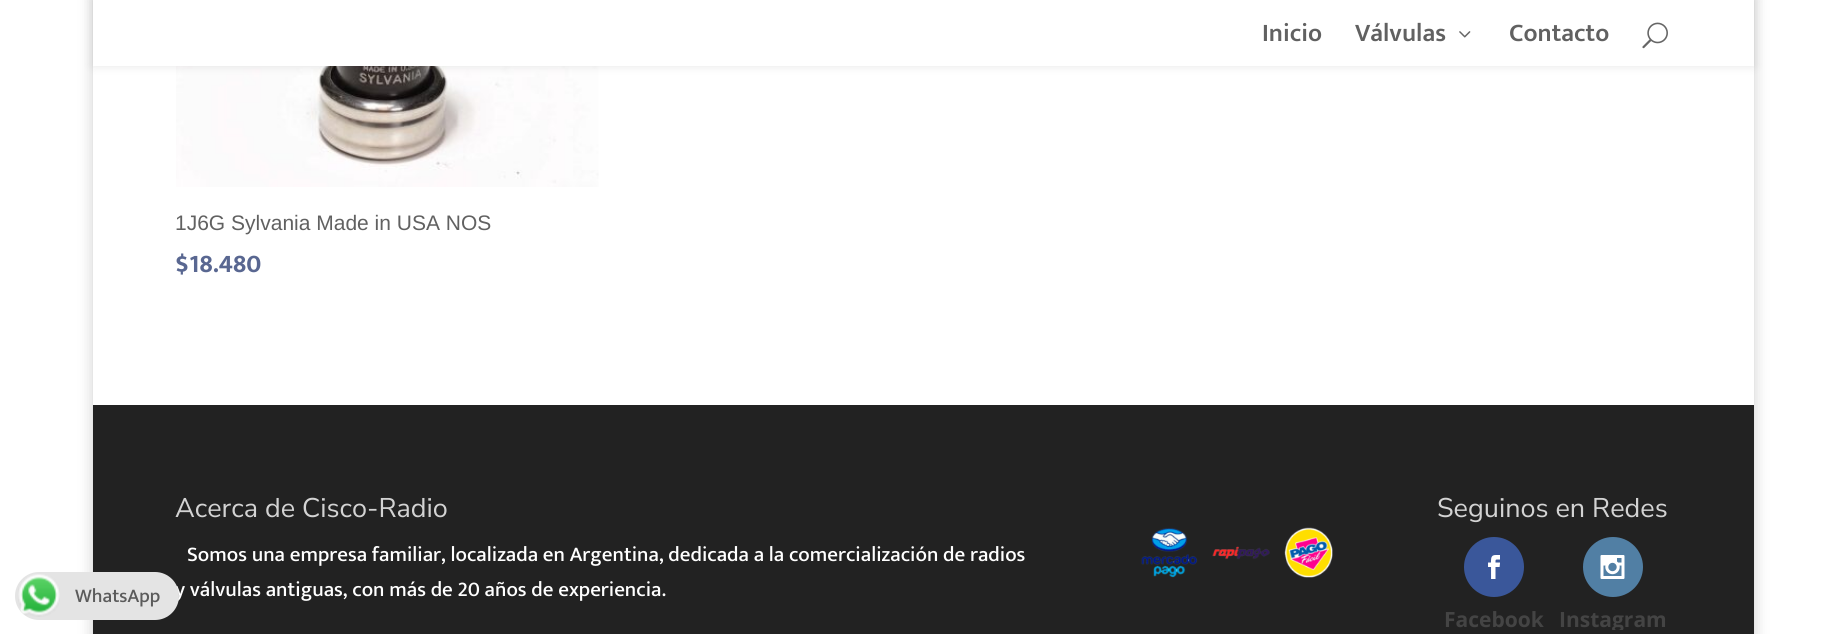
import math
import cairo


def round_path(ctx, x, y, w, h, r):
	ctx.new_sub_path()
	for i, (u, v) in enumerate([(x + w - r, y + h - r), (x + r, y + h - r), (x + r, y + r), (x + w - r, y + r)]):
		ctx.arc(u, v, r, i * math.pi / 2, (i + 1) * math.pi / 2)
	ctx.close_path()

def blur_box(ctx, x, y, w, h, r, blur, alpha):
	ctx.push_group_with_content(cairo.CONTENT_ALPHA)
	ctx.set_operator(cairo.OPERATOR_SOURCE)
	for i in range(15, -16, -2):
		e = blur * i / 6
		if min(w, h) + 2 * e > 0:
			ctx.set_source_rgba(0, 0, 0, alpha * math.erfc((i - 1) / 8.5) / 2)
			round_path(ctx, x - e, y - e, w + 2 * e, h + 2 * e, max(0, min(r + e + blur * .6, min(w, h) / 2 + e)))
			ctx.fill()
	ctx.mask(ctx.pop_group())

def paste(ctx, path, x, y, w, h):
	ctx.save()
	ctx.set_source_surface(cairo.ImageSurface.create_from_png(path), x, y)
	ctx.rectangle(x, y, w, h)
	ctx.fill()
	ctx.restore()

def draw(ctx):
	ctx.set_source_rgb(1, 1, 1)
	ctx.paint()
	ctx.set_source_rgb(0, 0, 0)
	blur_box(ctx, 93, -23, 1661, 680, 0, 7.5, 0.2)
	ctx.set_source_rgb(0.133, 0.133, 0.133)
	ctx.rectangle(93, 405, 1661, 229)
	ctx.fill()
	ctx.select_font_face('Mukta Medium')
	ctx.set_font_size(21)
	ctx.set_source_rgb(1, 1, 1)
	ctx.move_to(175, 596)
	ctx.show_text('y válvulas antiguas, con más de 20 años de experiencia.')
	ctx.set_source_rgb(0.894, 0.894, 0.894)
	round_path(ctx, 15, 572, 164, 48, 24)
	ctx.fill()
	paste(ctx, 'media/1.png', 18, 574, 42, 43)
	ctx.set_font_size(19.5)
	ctx.set_source_rgb(0.357, 0.357, 0.357)
	ctx.move_to(75, 602)
	ctx.show_text('WhatsApp')
	ctx.set_source_rgb(1, 1, 1)
	ctx.rectangle(93, 66, 1661, 339)
	ctx.fill()
	paste(ctx, 'media/4.png', 176, 66, 423, 121)
	ctx.set_source_rgb(0, 0, 0)
	blur_box(ctx, 93, 0, 1661, 66, 0, 5, 0.1)
	ctx.set_source_rgb(1, 1, 1)
	ctx.rectangle(93, 0, 1661, 66)
	ctx.fill()
	ctx.select_font_face('Mukta SemiBold')
	ctx.set_font_size(25.5)
	ctx.set_source_rgb(0.38, 0.38, 0.38)
	ctx.move_to(1262, 41)
	ctx.show_text('Inicio')
	ctx.move_to(1355, 41)
	ctx.show_text('Válvulas')
	paste(ctx, 'media/2.png', 1459, 31, 12, 7)
	ctx.move_to(1509, 41)
	ctx.show_text('Contacto')
	paste(ctx, 'media/3.png', 1642, 22, 26, 27)
	ctx.select_font_face('Liberation Sans')
	ctx.set_font_size(21)
	ctx.move_to(175, 230)
	ctx.show_text('1J6G Sylvania Made in USA NOS')
	ctx.select_font_face('Mukta', cairo.FONT_SLANT_NORMAL, cairo.FONT_WEIGHT_BOLD)
	ctx.set_font_size(25.5)
	ctx.set_source_rgb(0.349, 0.404, 0.569)
	ctx.move_to(175, 272)
	ctx.show_text('$18.480')
	ctx.select_font_face('Nunito Sans')
	ctx.set_font_size(27)
	ctx.set_source_rgb(0.827, 0.827, 0.827)
	ctx.move_to(175, 517)
	ctx.show_text('Acerca de Cisco-Radio')
	ctx.select_font_face('Mukta Medium')
	ctx.set_font_size(21)
	ctx.set_source_rgb(1, 1, 1)
	ctx.move_to(187, 561)
	ctx.show_text('Somos una empresa familiar, localizada en Argentina, dedicada a la comercialización de radios')
	paste(ctx, 'media/5.png', 1141, 527, 192, 51)
	ctx.select_font_face('Nunito Sans')
	ctx.set_font_size(27)
	ctx.set_source_rgb(0.827, 0.827, 0.827)
	ctx.move_to(1437, 517)
	ctx.show_text('Seguinos en Redes')
	ctx.set_source_rgb(0.227, 0.341, 0.604)
	ctx.new_path()
	ctx.arc(1494, 567, 30, 0, 2 * math.pi)
	ctx.fill()
	paste(ctx, 'media/6.png', 1488, 555, 12, 24)
	ctx.select_font_face('Open Sans', cairo.FONT_SLANT_NORMAL, cairo.FONT_WEIGHT_BOLD)
	ctx.set_font_size(21)
	ctx.set_source_rgb(0.267, 0.267, 0.267)
	ctx.move_to(1444, 627)
	ctx.show_text('Facebook')
	ctx.set_source_rgb(0.318, 0.498, 0.643)
	ctx.new_path()
	ctx.arc(1613, 567, 30, 0, 2 * math.pi)
	ctx.fill()
	paste(ctx, 'media/7.png', 1600, 555, 25, 24)
	ctx.save()
	ctx.rectangle(1556, 537, 114, 93)
	ctx.clip()
	ctx.set_source_rgb(0.267, 0.267, 0.267)
	ctx.move_to(1559, 627)
	ctx.show_text('Instagram')
	ctx.restore()


surface = cairo.ImageSurface(cairo.FORMAT_RGB24, 1844, 634)
ctx = cairo.Context(surface)
options = cairo.FontOptions()
options.set_hint_metrics(cairo.HINT_METRICS_OFF)
options.set_hint_style(cairo.HINT_STYLE_NONE)
ctx.set_font_options(options)
ctx.set_miter_limit(4)
draw(ctx)
surface.write_to_png('image.png')
